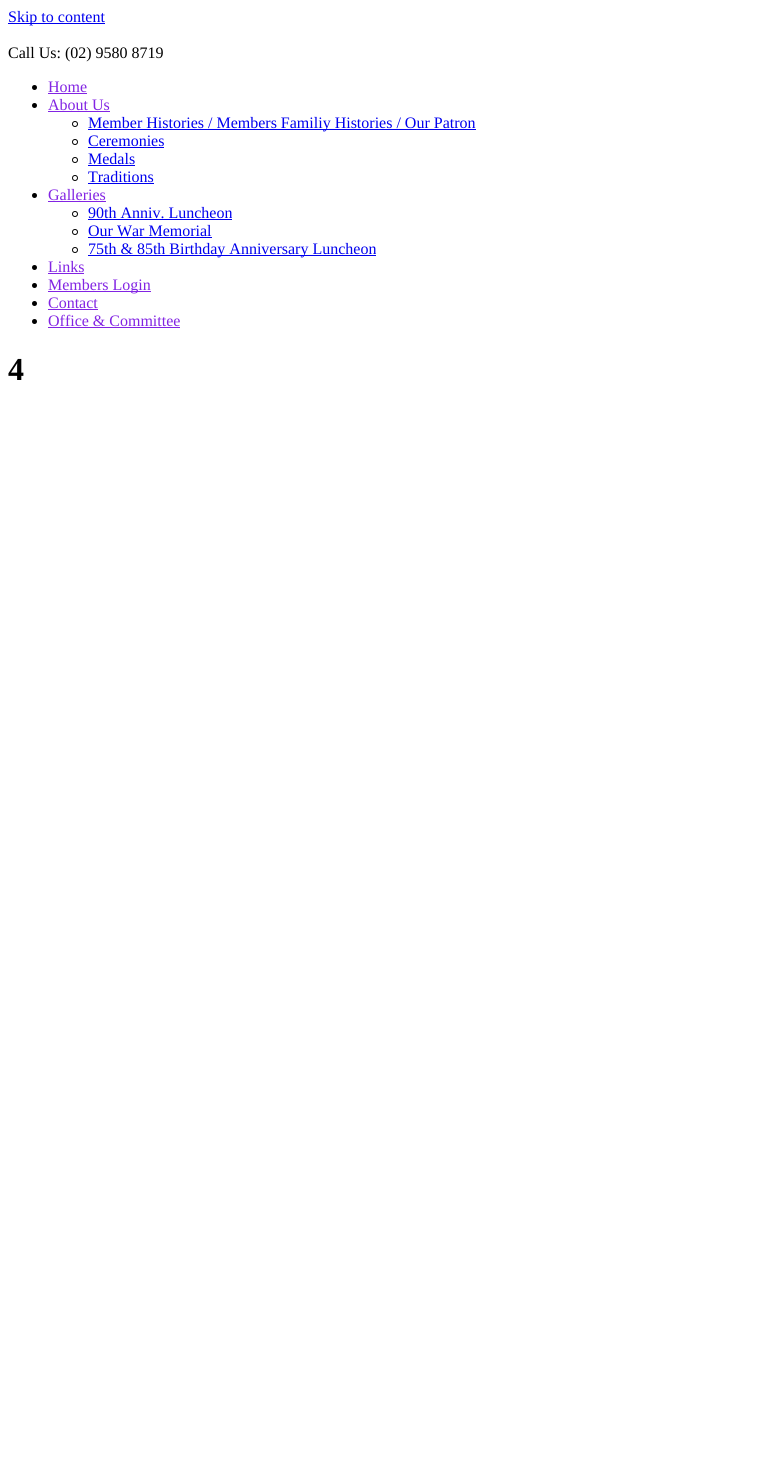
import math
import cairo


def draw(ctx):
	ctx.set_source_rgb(1, 1, 1)
	ctx.paint()
	ctx.set_source_rgb(0, 0, 0.933)
	ctx.rectangle(8, 23, 97, 1)
	ctx.fill()
	ctx.select_font_face('Liberation Serif')
	ctx.set_font_size(16)
	ctx.move_to(8, 22)
	ctx.show_text('Skip to content')
	ctx.set_source_rgb(0, 0, 0)
	ctx.move_to(8, 58)
	ctx.show_text('Call Us: (02) 9580 8719')
	ctx.new_path()
	ctx.arc(34.5, 87.5, 2.5, 0, 2 * math.pi)
	ctx.fill()
	ctx.set_source_rgb(0.51, 0.141, 0.89)
	ctx.move_to(48, 92)
	ctx.show_text('Home')
	ctx.rectangle(48, 93, 39, 1)
	ctx.fill()
	ctx.set_source_rgb(0, 0, 0)
	ctx.arc(34.5, 105.5, 2.5, 0, 2 * math.pi)
	ctx.fill()
	ctx.set_source_rgb(0.51, 0.141, 0.89)
	ctx.move_to(48, 110)
	ctx.show_text('About Us')
	ctx.rectangle(48, 111, 62, 1)
	ctx.fill()
	ctx.arc(75, 124, 2.5, 0, 2 * math.pi)
	ctx.set_source_rgb(0, 0, 0)
	ctx.set_line_width(1)
	ctx.stroke()
	ctx.set_source_rgb(0, 0, 0.933)
	ctx.rectangle(88, 129, 388, 1)
	ctx.fill()
	ctx.move_to(88, 128)
	ctx.show_text('Member Histories / Members Familiy Histories / Our Patron')
	ctx.new_path()
	ctx.arc(75, 142, 2.5, 0, 2 * math.pi)
	ctx.set_source_rgb(0, 0, 0)
	ctx.stroke()
	ctx.set_source_rgb(0, 0, 0.933)
	ctx.move_to(88, 146)
	ctx.show_text('Ceremonies')
	ctx.rectangle(88, 147, 76, 1)
	ctx.fill()
	ctx.arc(75, 160, 2.5, 0, 2 * math.pi)
	ctx.set_source_rgb(0, 0, 0)
	ctx.stroke()
	ctx.set_source_rgb(0, 0, 0.933)
	ctx.move_to(88, 164)
	ctx.show_text('Medals')
	ctx.rectangle(88, 165, 47, 1)
	ctx.fill()
	ctx.arc(75, 178, 2.5, 0, 2 * math.pi)
	ctx.set_source_rgb(0, 0, 0)
	ctx.stroke()
	ctx.set_source_rgb(0, 0, 0.933)
	ctx.move_to(88, 182)
	ctx.show_text('Traditions')
	ctx.rectangle(88, 183, 66, 1)
	ctx.fill()
	ctx.set_source_rgb(0, 0, 0)
	ctx.arc(34.5, 195.5, 2.5, 0, 2 * math.pi)
	ctx.fill()
	ctx.set_source_rgb(0.51, 0.141, 0.89)
	ctx.move_to(48, 200)
	ctx.show_text('Galleries')
	ctx.rectangle(48, 201, 58, 1)
	ctx.fill()
	ctx.arc(75, 214, 2.5, 0, 2 * math.pi)
	ctx.set_source_rgb(0, 0, 0)
	ctx.stroke()
	ctx.set_source_rgb(0, 0, 0.933)
	ctx.move_to(88, 218)
	ctx.show_text('90th Anniv. Luncheon')
	ctx.rectangle(88, 219, 144, 1)
	ctx.fill()
	ctx.arc(75, 232, 2.5, 0, 2 * math.pi)
	ctx.set_source_rgb(0, 0, 0)
	ctx.stroke()
	ctx.set_source_rgb(0, 0, 0.933)
	ctx.move_to(88, 236)
	ctx.show_text('Our War Memorial')
	ctx.rectangle(88, 237, 124, 1)
	ctx.fill()
	ctx.arc(75, 250, 2.5, 0, 2 * math.pi)
	ctx.set_source_rgb(0, 0, 0)
	ctx.stroke()
	ctx.set_source_rgb(0, 0, 0.933)
	ctx.rectangle(88, 255, 288, 1)
	ctx.fill()
	ctx.move_to(88, 254)
	ctx.show_text('75th & 85th Birthday Anniversary Luncheon')
	ctx.set_source_rgb(0, 0, 0)
	ctx.new_path()
	ctx.arc(34.5, 267.5, 2.5, 0, 2 * math.pi)
	ctx.fill()
	ctx.set_source_rgb(0.51, 0.141, 0.89)
	ctx.move_to(48, 272)
	ctx.show_text('Links')
	ctx.rectangle(48, 273, 36, 1)
	ctx.fill()
	ctx.set_source_rgb(0, 0, 0)
	ctx.arc(34.5, 285.5, 2.5, 0, 2 * math.pi)
	ctx.fill()
	ctx.set_source_rgb(0.51, 0.141, 0.89)
	ctx.rectangle(48, 291, 103, 1)
	ctx.fill()
	ctx.move_to(48, 290)
	ctx.show_text('Members Login')
	ctx.set_source_rgb(0, 0, 0)
	ctx.new_path()
	ctx.arc(34.5, 303.5, 2.5, 0, 2 * math.pi)
	ctx.fill()
	ctx.set_source_rgb(0.51, 0.141, 0.89)
	ctx.move_to(48, 308)
	ctx.show_text('Contact')
	ctx.rectangle(48, 309, 50, 1)
	ctx.fill()
	ctx.set_source_rgb(0, 0, 0)
	ctx.arc(34.5, 321.5, 2.5, 0, 2 * math.pi)
	ctx.fill()
	ctx.set_source_rgb(0.51, 0.141, 0.89)
	ctx.move_to(48, 326)
	ctx.show_text('Office & Committee')
	ctx.rectangle(48, 327, 132, 1)
	ctx.fill()
	ctx.select_font_face('Liberation Serif', cairo.FONT_SLANT_NORMAL, cairo.FONT_WEIGHT_BOLD)
	ctx.set_font_size(32)
	ctx.set_source_rgb(0, 0, 0)
	ctx.move_to(8, 380)
	ctx.show_text('4')


surface = cairo.ImageSurface(cairo.FORMAT_RGB24, 776, 1460)
ctx = cairo.Context(surface)
options = cairo.FontOptions()
options.set_hint_metrics(cairo.HINT_METRICS_OFF)
options.set_hint_style(cairo.HINT_STYLE_NONE)
ctx.set_font_options(options)
ctx.set_miter_limit(4)
draw(ctx)
surface.write_to_png('image.png')
